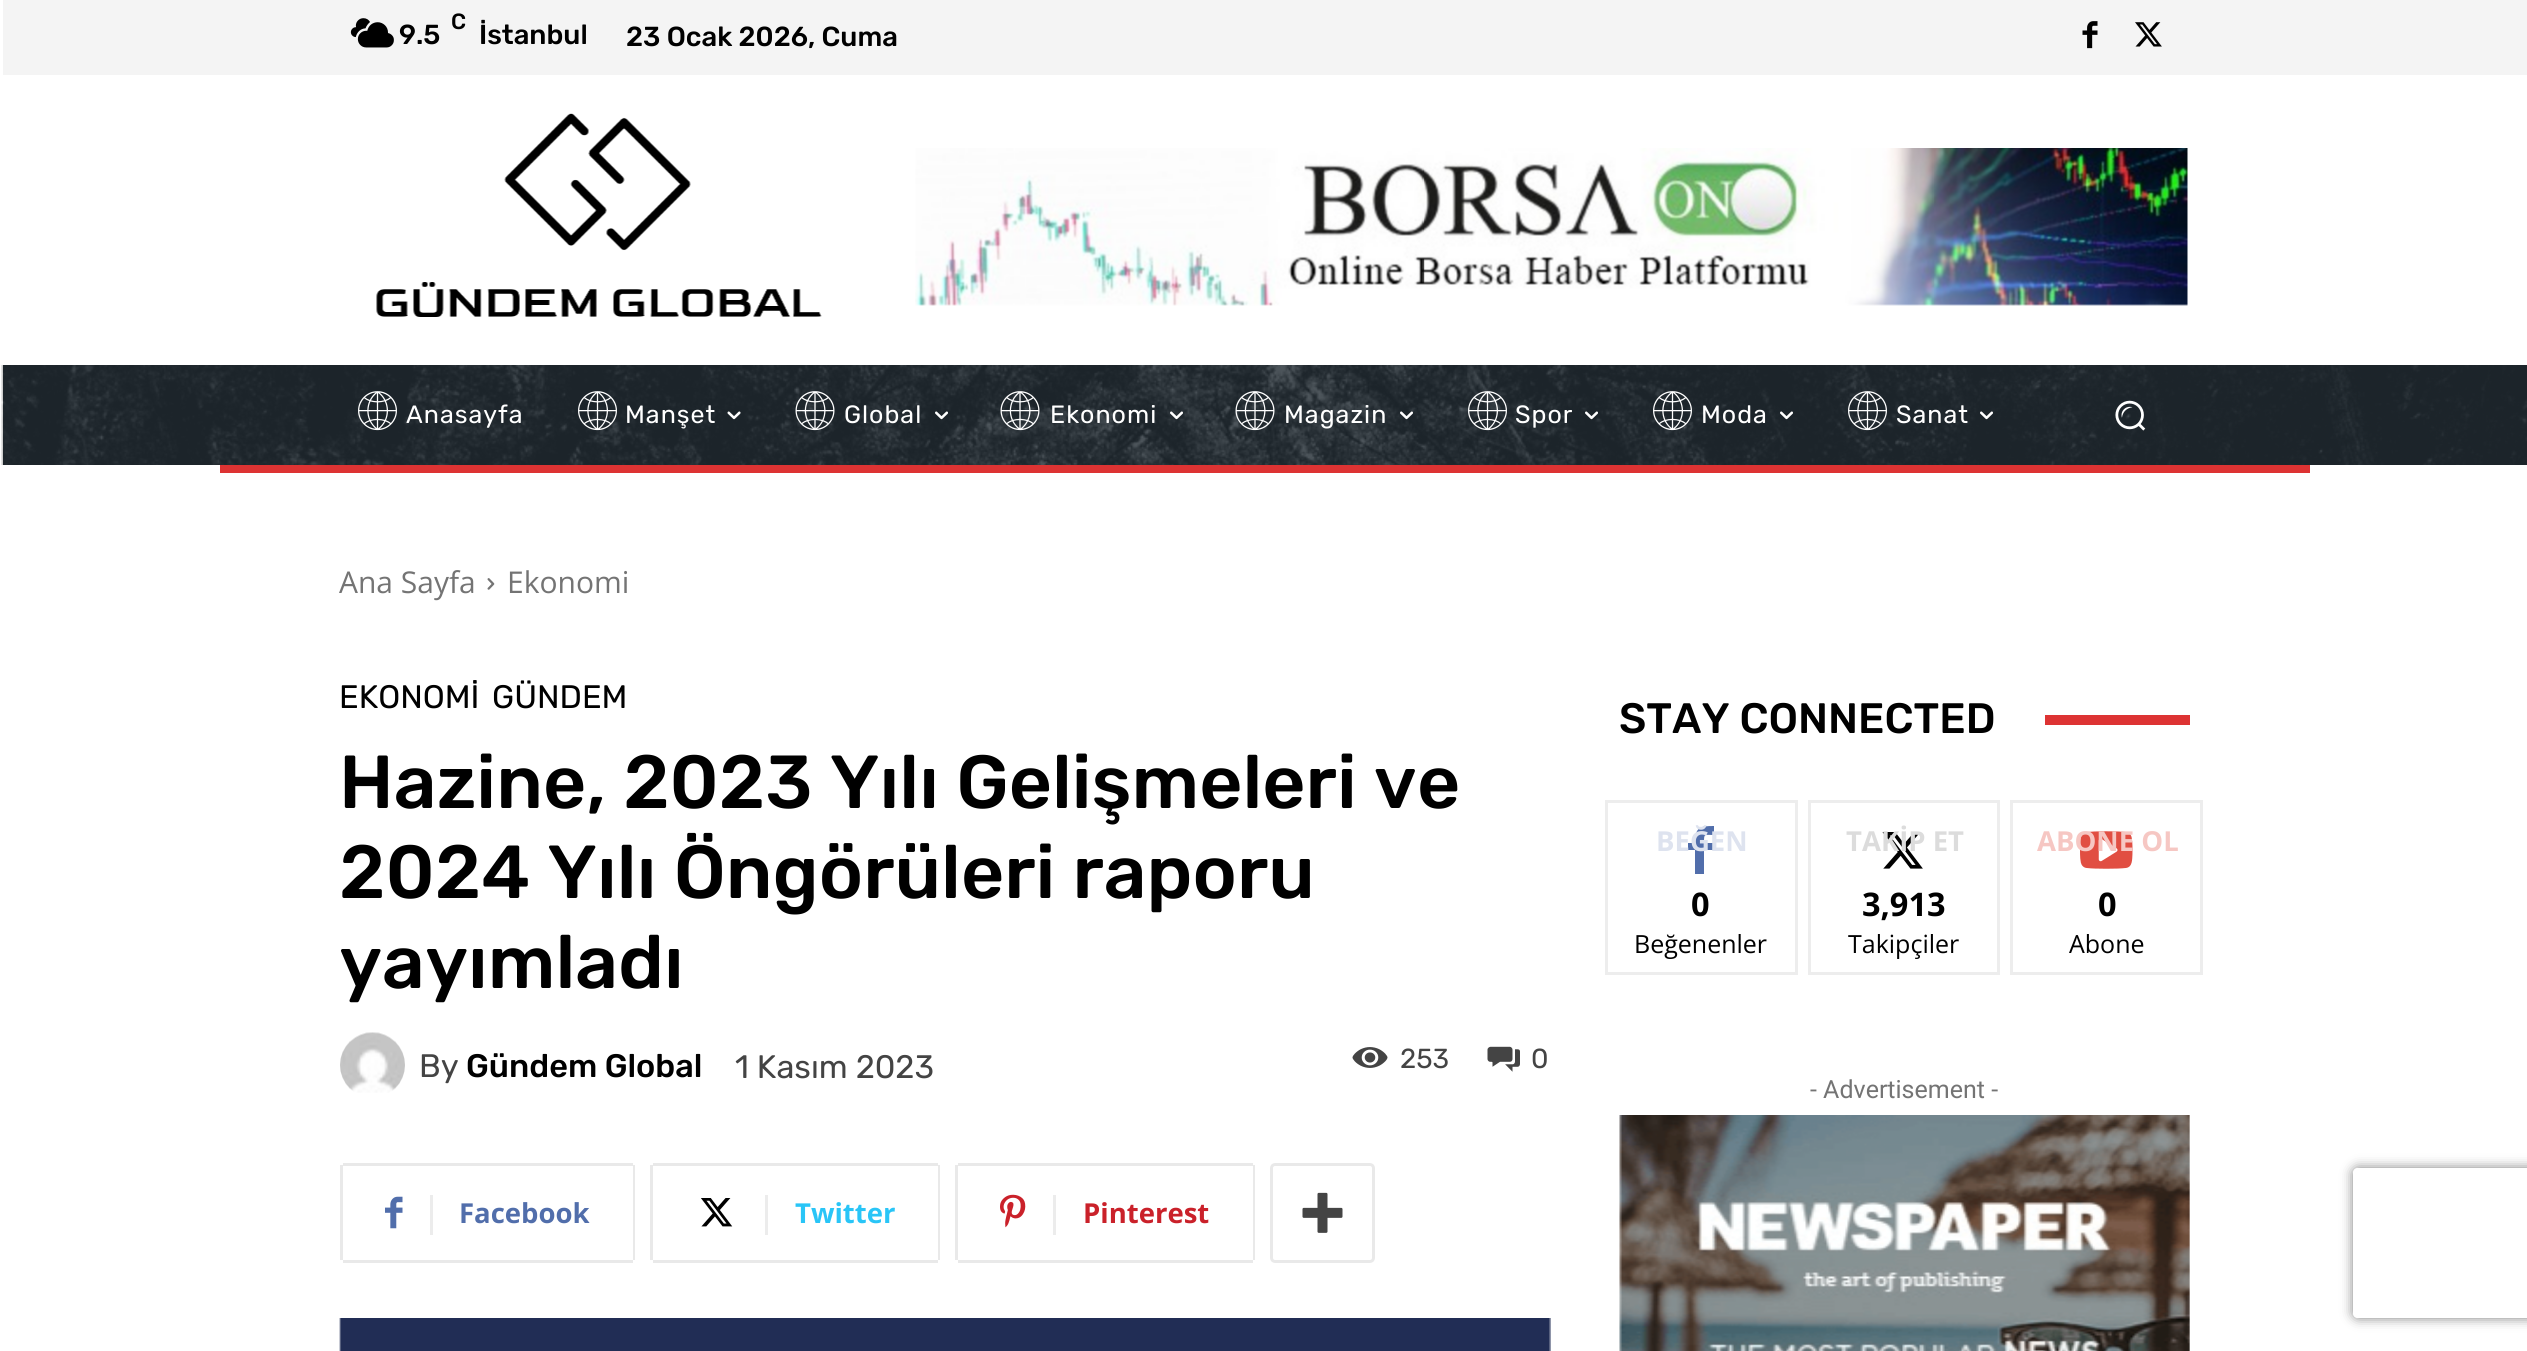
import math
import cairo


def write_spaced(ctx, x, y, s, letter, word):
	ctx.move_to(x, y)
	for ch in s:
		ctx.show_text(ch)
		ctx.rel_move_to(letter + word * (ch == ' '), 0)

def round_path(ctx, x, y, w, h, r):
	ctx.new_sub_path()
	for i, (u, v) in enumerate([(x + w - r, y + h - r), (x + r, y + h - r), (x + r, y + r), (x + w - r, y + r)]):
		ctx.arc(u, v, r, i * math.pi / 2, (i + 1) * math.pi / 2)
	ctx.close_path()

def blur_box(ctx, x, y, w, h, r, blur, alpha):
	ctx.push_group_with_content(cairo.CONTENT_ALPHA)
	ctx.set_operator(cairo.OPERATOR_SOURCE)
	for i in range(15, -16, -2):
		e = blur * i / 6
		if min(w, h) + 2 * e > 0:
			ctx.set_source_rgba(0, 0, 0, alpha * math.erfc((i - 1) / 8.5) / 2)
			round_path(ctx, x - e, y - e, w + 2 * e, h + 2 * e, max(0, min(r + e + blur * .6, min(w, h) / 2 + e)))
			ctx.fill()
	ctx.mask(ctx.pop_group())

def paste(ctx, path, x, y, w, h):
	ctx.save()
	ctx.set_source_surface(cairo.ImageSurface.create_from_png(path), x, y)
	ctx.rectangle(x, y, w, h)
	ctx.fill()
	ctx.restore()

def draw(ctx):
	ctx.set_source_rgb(1, 1, 1)
	ctx.paint()
	ctx.set_source_rgb(0.957, 0.957, 0.957)
	ctx.rectangle(3, 0, 2524, 75)
	ctx.fill()
	paste(ctx, 'media/1.png', 350, 18, 44, 30)
	ctx.select_font_face('Rubik Medium')
	ctx.set_font_size(22)
	ctx.set_source_rgb(0, 0, 0)
	ctx.move_to(451, 29)
	ctx.show_text('C')
	ctx.set_font_size(27.5)
	for x, y, s in [
		(399, 44, '9.5'),
		(479, 44, 'İstanbul'),
		(626, 46, '23 Ocak 2026, Cuma'),
	]:
		ctx.move_to(x, y)
		ctx.show_text(s)
	paste(ctx, 'media/2.png', 2082, 21, 16, 28)
	paste(ctx, 'media/3.png', 2135, 22, 27, 25)
	paste(ctx, 'media/4.png', 376, 113, 446, 204)
	paste(ctx, 'media/5.png', 915, 148, 1273, 158)
	ctx.set_source_rgb(0.137, 0.176, 0.208)
	ctx.rectangle(3, 365, 2524, 100)
	ctx.fill()
	paste(ctx, 'media/6.png', 1, 365, 2526, 100)
	paste(ctx, 'media/7.png', 358, 391, 39, 40)
	ctx.select_font_face('Rubik')
	ctx.set_font_size(25)
	ctx.set_source_rgb(1, 1, 1)
	write_spaced(ctx, 406, 423, 'Anasayfa', 1, 0)
	paste(ctx, 'media/8.png', 578, 391, 39, 40)
	write_spaced(ctx, 625, 423, 'Manşet', 1, 0)
	paste(ctx, 'media/9.png', 727, 411, 14, 9)
	paste(ctx, 'media/10.png', 795, 391, 40, 40)
	write_spaced(ctx, 844, 423, 'Global', 1, 0)
	paste(ctx, 'media/11.png', 935, 411, 13, 9)
	paste(ctx, 'media/12.png', 1000, 391, 40, 40)
	write_spaced(ctx, 1050, 423, 'Ekonomi', 1, 0)
	paste(ctx, 'media/13.png', 1170, 411, 13, 9)
	paste(ctx, 'media/14.png', 1235, 391, 40, 40)
	write_spaced(ctx, 1284, 423, 'Magazin', 1, 0)
	paste(ctx, 'media/15.png', 1400, 411, 13, 9)
	paste(ctx, 'media/16.png', 1468, 391, 39, 40)
	write_spaced(ctx, 1515, 423, 'Spor', 1, 0)
	paste(ctx, 'media/17.png', 1585, 411, 13, 9)
	paste(ctx, 'media/18.png', 1653, 391, 39, 40)
	write_spaced(ctx, 1701, 423, 'Moda', 1, 0)
	paste(ctx, 'media/19.png', 1780, 411, 13, 9)
	paste(ctx, 'media/20.png', 1848, 391, 39, 40)
	write_spaced(ctx, 1896, 423, 'Sanat', 1, 0)
	paste(ctx, 'media/21.png', 1980, 411, 13, 9)
	paste(ctx, 'media/22.png', 2115, 400, 31, 31)
	ctx.set_source_rgb(0.867, 0.2, 0.2)
	ctx.rectangle(220, 465, 2090, 8)
	ctx.fill()
	ctx.select_font_face('Open Sans')
	ctx.set_font_size(30)
	ctx.set_source_rgb(0.455, 0.455, 0.455)
	ctx.move_to(339, 593)
	ctx.show_text('Ana Sayfa')
	paste(ctx, 'media/23.png', 487, 578, 8, 12)
	ctx.move_to(507, 593)
	ctx.show_text('Ekonomi')
	ctx.select_font_face('Rubik')
	ctx.set_font_size(32.5)
	ctx.set_source_rgb(0, 0, 0)
	ctx.move_to(339, 708)
	ctx.show_text('EKONOMİ')
	ctx.move_to(492, 708)
	ctx.show_text('GÜNDEM')
	ctx.select_font_face('Rubik Medium')
	ctx.set_font_size(75)
	for x, y, s in [
		(339, 808, 'Hazine, 2023 Yılı Gelişmeleri ve'),
		(339, 898, '2024 Yılı Öngörüleri raporu'),
		(339, 988, 'yayımladı'),
	]:
		ctx.move_to(x, y)
		ctx.show_text(s)
	paste(ctx, 'media/24.png', 340, 1032, 65, 61)
	ctx.select_font_face('Rubik')
	ctx.set_font_size(32.5)
	ctx.set_source_rgb(0.267, 0.267, 0.267)
	ctx.move_to(419, 1077)
	ctx.show_text('By')
	ctx.select_font_face('Rubik Medium')
	ctx.set_source_rgb(0, 0, 0)
	ctx.move_to(466, 1077)
	ctx.show_text('Gündem Global')
	ctx.select_font_face('Rubik')
	ctx.set_source_rgb(0.267, 0.267, 0.267)
	ctx.move_to(735, 1078)
	ctx.show_text('1 Kasım 2023')
	paste(ctx, 'media/25.png', 1352, 1047, 36, 21)
	ctx.set_font_size(27.5)
	ctx.move_to(1400, 1068)
	ctx.show_text('253')
	paste(ctx, 'media/26.png', 1487, 1046, 33, 26)
	ctx.move_to(1531, 1068)
	ctx.show_text('0')
	ctx.set_source_rgb(0.914, 0.914, 0.914)
	ctx.rectangle(340, 1165, 3, 95)
	ctx.fill()
	paste(ctx, 'media/27.png', 385, 1196, 18, 33)
	ctx.rectangle(343, 1163, 290, 3)
	ctx.rectangle(633, 1165, 2, 95)
	ctx.rectangle(343, 1260, 290, 3)
	ctx.fill()
	ctx.set_source_rgb(0.922, 0.922, 0.922)
	ctx.rectangle(430, 1195, 3, 40)
	ctx.fill()
	ctx.select_font_face('Open Sans', cairo.FONT_SLANT_NORMAL, cairo.FONT_WEIGHT_BOLD)
	ctx.set_source_rgb(0.318, 0.431, 0.671)
	ctx.move_to(459, 1223)
	ctx.show_text('Facebook')
	ctx.set_source_rgb(0.914, 0.914, 0.914)
	ctx.rectangle(650, 1165, 3, 95)
	ctx.fill()
	paste(ctx, 'media/28.png', 701, 1198, 32, 29)
	ctx.rectangle(653, 1163, 285, 3)
	ctx.rectangle(938, 1165, 2, 95)
	ctx.rectangle(653, 1260, 285, 3)
	ctx.fill()
	ctx.set_source_rgb(0.922, 0.922, 0.922)
	ctx.rectangle(765, 1195, 3, 40)
	ctx.fill()
	ctx.set_source_rgb(0.161, 0.773, 0.965)
	ctx.move_to(795, 1223)
	ctx.show_text('Twitter')
	ctx.set_source_rgb(0.914, 0.914, 0.914)
	ctx.rectangle(955, 1165, 3, 95)
	ctx.fill()
	paste(ctx, 'media/29.png', 1000, 1194, 26, 34)
	ctx.rectangle(958, 1163, 295, 3)
	ctx.rectangle(1253, 1165, 2, 95)
	ctx.rectangle(958, 1260, 295, 3)
	ctx.fill()
	ctx.set_source_rgb(0.922, 0.922, 0.922)
	ctx.rectangle(1053, 1195, 3, 40)
	ctx.fill()
	ctx.set_source_rgb(0.792, 0.129, 0.165)
	ctx.move_to(1083, 1223)
	ctx.show_text('Pinterest')
	round_path(ctx, 1271.5, 1164.5, 102, 97, 3.5)
	ctx.set_source_rgb(0.914, 0.914, 0.914)
	ctx.set_line_width(3)
	ctx.stroke()
	paste(ctx, 'media/30.png', 1302, 1192, 41, 41)
	paste(ctx, 'media/31.png', 339, 1318, 1212, 33)
	ctx.select_font_face('Rubik Medium')
	ctx.set_font_size(42.5)
	ctx.set_source_rgb(0, 0, 0)
	ctx.move_to(1619, 733)
	ctx.show_text('STAY CONNECTED')
	ctx.set_source_rgb(0.867, 0.2, 0.2)
	ctx.rectangle(2045, 715, 145, 10)
	ctx.fill()
	ctx.rectangle(1606.5, 801.5, 190, 172)
	ctx.set_source_rgb(0.929, 0.929, 0.929)
	ctx.stroke()
	ctx.set_source_rgb(0.318, 0.431, 0.671)
	ctx.new_path()
	ctx.move_to(1714, 835)
	ctx.curve_to(1704, 835, 1704, 833, 1704, 843)
	ctx.line_to(1714, 843)
	ctx.line_to(1714, 850)
	ctx.line_to(1704, 850)
	ctx.line_to(1704, 874)
	ctx.line_to(1695, 874)
	ctx.line_to(1695, 850)
	ctx.line_to(1688, 850)
	ctx.line_to(1688, 843)
	ctx.line_to(1695, 843)
	ctx.curve_to(1695, 827, 1700, 826, 1714, 826)
	ctx.close_path()
	ctx.fill()
	ctx.select_font_face('Open Sans', cairo.FONT_SLANT_NORMAL, cairo.FONT_WEIGHT_BOLD)
	ctx.set_font_size(27.5)
	ctx.set_source_rgb(0.871, 0.89, 0.937)
	ctx.move_to(1656, 851)
	ctx.show_text('BEĞEN')
	ctx.set_font_size(32.5)
	ctx.set_source_rgb(0, 0, 0)
	ctx.move_to(1691, 916)
	ctx.show_text('0')
	ctx.select_font_face('Open Sans')
	ctx.set_font_size(25)
	ctx.move_to(1634, 953)
	ctx.show_text('Beğenenler')
	ctx.rectangle(1809.5, 801.5, 189, 172)
	ctx.set_source_rgb(0.929, 0.929, 0.929)
	ctx.stroke()
	paste(ctx, 'media/32.png', 1882, 832, 41, 37)
	ctx.select_font_face('Open Sans', cairo.FONT_SLANT_NORMAL, cairo.FONT_WEIGHT_BOLD)
	ctx.set_font_size(27.5)
	ctx.set_source_rgb(0.863, 0.863, 0.863)
	ctx.move_to(1846, 851)
	ctx.show_text('TAKİP ET')
	ctx.set_font_size(32.5)
	ctx.set_source_rgb(0, 0, 0)
	ctx.move_to(1862, 916)
	ctx.show_text('3,913')
	ctx.select_font_face('Open Sans')
	ctx.set_font_size(25)
	ctx.move_to(1848, 953)
	ctx.show_text('Takipçiler')
	ctx.rectangle(2011.5, 801.5, 190, 172)
	ctx.set_source_rgb(0.929, 0.929, 0.929)
	ctx.stroke()
	paste(ctx, 'media/33.png', 2080, 831, 53, 38)
	ctx.select_font_face('Open Sans', cairo.FONT_SLANT_NORMAL, cairo.FONT_WEIGHT_BOLD)
	ctx.set_font_size(27.5)
	ctx.set_source_rgb(0.961, 0.78, 0.765)
	ctx.move_to(2037, 851)
	ctx.show_text('ABONE OL')
	ctx.set_font_size(32.5)
	ctx.set_source_rgb(0, 0, 0)
	ctx.move_to(2098, 916)
	ctx.show_text('0')
	ctx.select_font_face('Open Sans')
	ctx.set_font_size(25)
	ctx.move_to(2069, 953)
	ctx.show_text('Abone')
	ctx.select_font_face('Roboto')
	ctx.set_source_rgb(0.455, 0.455, 0.455)
	ctx.move_to(1810, 1098)
	ctx.show_text('- Advertisement -')
	paste(ctx, 'media/34.png', 1619, 1115, 571, 236)
	ctx.save()
	ctx.set_fill_rule(cairo.FILL_RULE_EVEN_ODD)
	ctx.new_path()
	ctx.move_to(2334, 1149)
	ctx.line_to(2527, 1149)
	ctx.line_to(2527, 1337)
	ctx.line_to(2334, 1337)
	ctx.close_path()
	ctx.move_to(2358, 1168)
	ctx.line_to(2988, 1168)
	ctx.curve_to(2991, 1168, 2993, 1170, 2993, 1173)
	ctx.line_to(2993, 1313)
	ctx.curve_to(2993, 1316, 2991, 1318, 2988, 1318)
	ctx.line_to(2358, 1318)
	ctx.curve_to(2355, 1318, 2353, 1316, 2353, 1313)
	ctx.line_to(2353, 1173)
	ctx.curve_to(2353, 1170, 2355, 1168, 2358, 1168)
	ctx.close_path()
	ctx.clip()
	ctx.set_source_rgb(0.502, 0.502, 0.502)
	blur_box(ctx, 2353, 1168, 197, 150, 5, 6, 1)
	ctx.restore()


surface = cairo.ImageSurface(cairo.FORMAT_RGB24, 2527, 1351)
ctx = cairo.Context(surface)
options = cairo.FontOptions()
options.set_hint_metrics(cairo.HINT_METRICS_OFF)
options.set_hint_style(cairo.HINT_STYLE_NONE)
ctx.set_font_options(options)
ctx.set_miter_limit(4)
draw(ctx)
surface.write_to_png('image.png')
